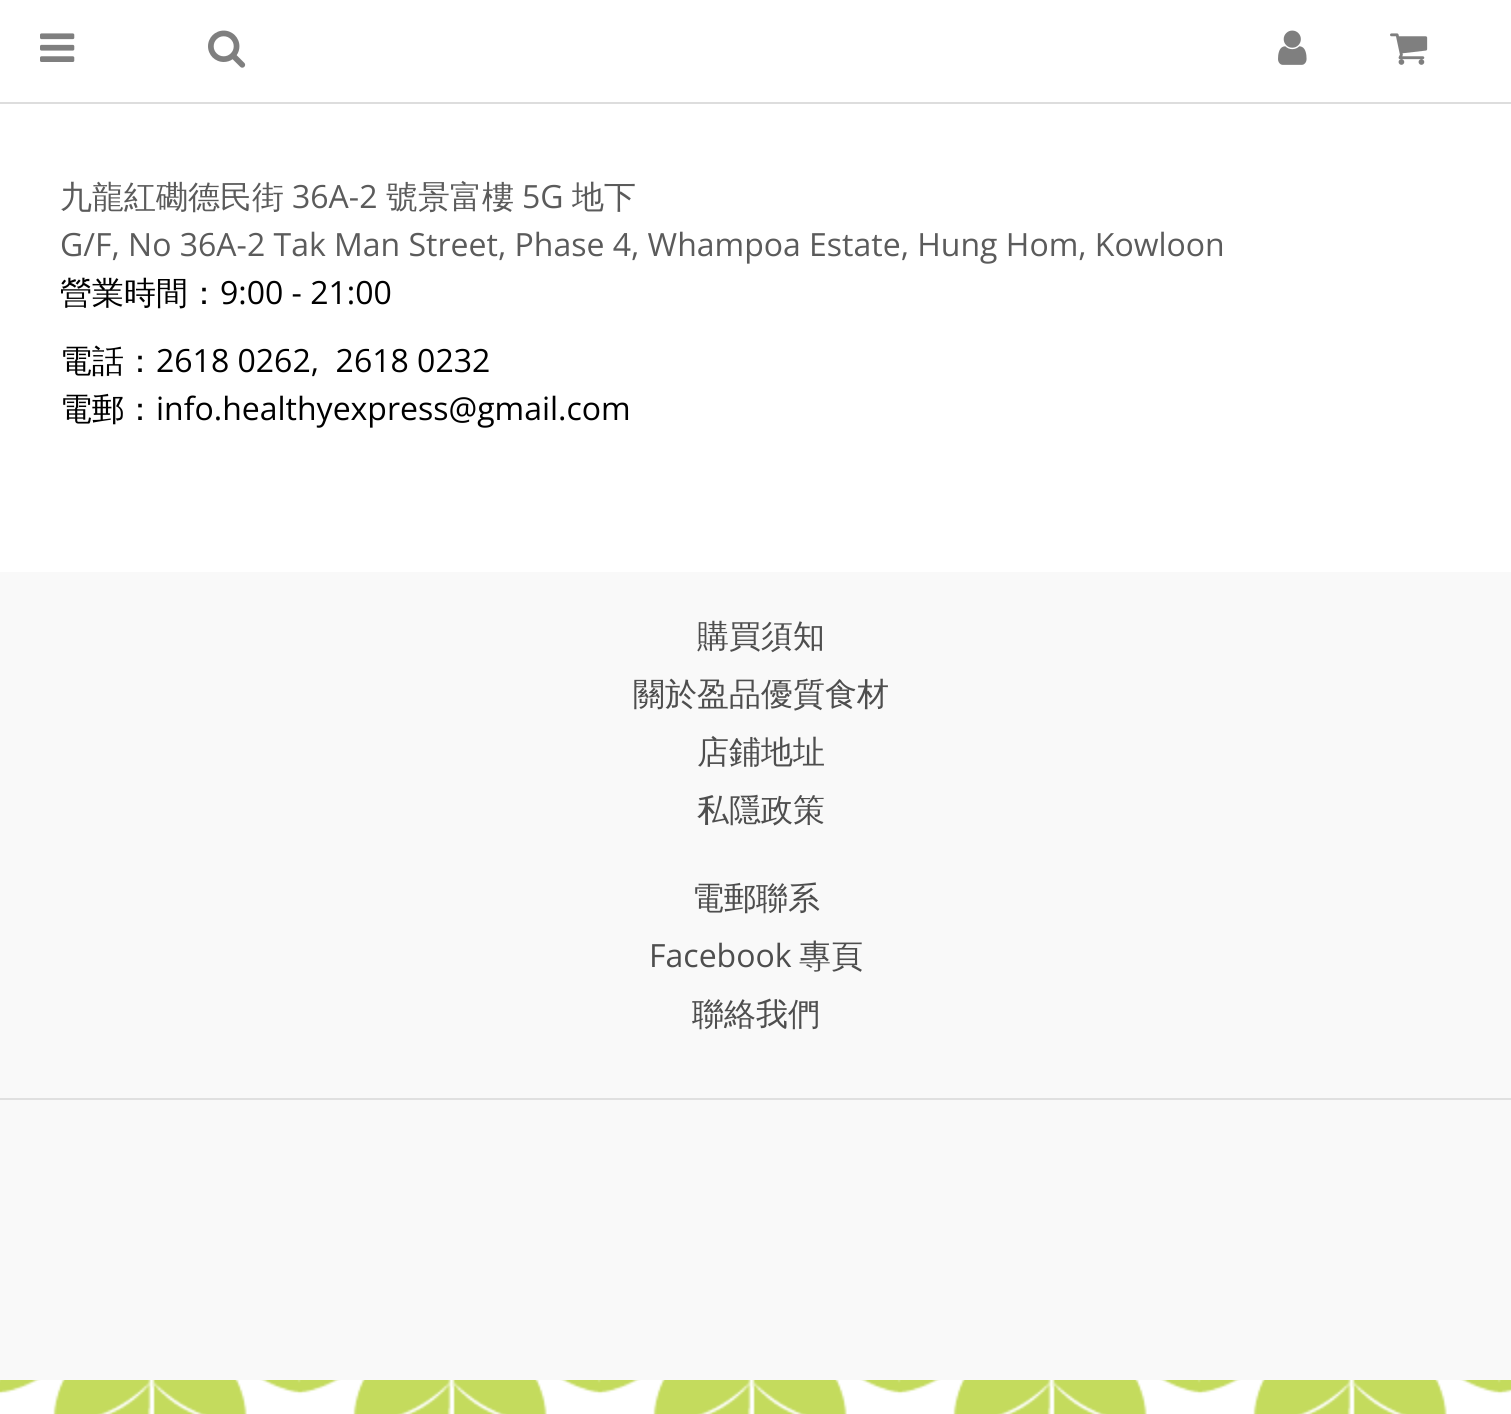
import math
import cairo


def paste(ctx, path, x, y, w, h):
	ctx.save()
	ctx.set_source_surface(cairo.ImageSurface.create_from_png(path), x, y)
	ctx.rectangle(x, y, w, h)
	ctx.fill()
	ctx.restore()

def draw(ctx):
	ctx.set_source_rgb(1, 1, 1)
	ctx.paint()
	paste(ctx, 'media/1.png', 0, 1380, 1511, 34)
	ctx.set_source_rgb(0.867, 0.867, 0.867)
	ctx.rectangle(0, 102, 1511, 2)
	ctx.fill()
	paste(ctx, 'media/2.png', 40, 33, 35, 29)
	paste(ctx, 'media/3.png', 208, 30, 38, 38)
	paste(ctx, 'media/4.png', 1278, 30, 29, 35)
	paste(ctx, 'media/5.png', 1390, 33, 38, 32)
	ctx.select_font_face('WenQuanYi Zen Hei Medium')
	ctx.set_font_size(32)
	ctx.set_source_rgb(0.357, 0.357, 0.357)
	ctx.move_to(60, 208)
	ctx.show_text('九龍紅磡德民街')
	ctx.select_font_face('Open Sans')
	ctx.move_to(292, 208)
	ctx.show_text('36A-2')
	ctx.select_font_face('WenQuanYi Zen Hei Medium')
	ctx.move_to(386, 208)
	ctx.show_text('號景富樓')
	ctx.select_font_face('Open Sans')
	ctx.move_to(522, 208)
	ctx.show_text('5G')
	ctx.select_font_face('WenQuanYi Zen Hei Medium')
	ctx.move_to(572, 208)
	ctx.show_text('地下')
	ctx.select_font_face('Open Sans')
	ctx.move_to(60, 256)
	ctx.show_text('G/F, No 36A-2 Tak Man Street, Phase 4, Whampoa Estate, Hung Hom, Kowloon')
	ctx.select_font_face('WenQuanYi Zen Hei Medium')
	ctx.set_source_rgb(0, 0, 0)
	ctx.move_to(60, 304)
	ctx.show_text('營業時間：')
	ctx.select_font_face('Open Sans')
	ctx.move_to(220, 304)
	ctx.show_text('9:00 - 21:00')
	ctx.select_font_face('WenQuanYi Zen Hei Medium')
	ctx.move_to(60, 372)
	ctx.show_text('電話：')
	ctx.select_font_face('Open Sans')
	ctx.move_to(156, 372)
	ctx.show_text('2618 0262,  2618 0232')
	ctx.select_font_face('WenQuanYi Zen Hei Medium')
	ctx.move_to(60, 420)
	ctx.show_text('電郵：')
	ctx.select_font_face('Open Sans')
	ctx.move_to(156, 420)
	ctx.show_text('info.healthyexpress@gmail.com')
	ctx.set_source_rgb(0.973, 0.973, 0.973)
	ctx.rectangle(0, 572, 1511, 808)
	ctx.fill()
	ctx.select_font_face('WenQuanYi Zen Hei Medium')
	ctx.set_source_rgb(0.306, 0.306, 0.306)
	for x, y, s in [
		(697, 647, '購買須知'),
		(633, 705, '關於盈品優質食材'),
		(697, 763, '店鋪地址'),
		(697, 821, '私隱政策'),
		(692, 909, '電郵聯系'),
	]:
		ctx.move_to(x, y)
		ctx.show_text(s)
	ctx.select_font_face('Open Sans')
	ctx.move_to(649, 967)
	ctx.show_text('Facebook')
	ctx.select_font_face('WenQuanYi Zen Hei Medium')
	ctx.move_to(799, 967)
	ctx.show_text('專頁')
	ctx.move_to(692, 1025)
	ctx.show_text('聯絡我們')
	ctx.set_source_rgb(0.878, 0.878, 0.878)
	ctx.rectangle(0, 1098, 1511, 2)
	ctx.fill()


surface = cairo.ImageSurface(cairo.FORMAT_RGB24, 1511, 1414)
ctx = cairo.Context(surface)
options = cairo.FontOptions()
options.set_hint_metrics(cairo.HINT_METRICS_OFF)
options.set_hint_style(cairo.HINT_STYLE_NONE)
ctx.set_font_options(options)
ctx.set_miter_limit(4)
draw(ctx)
surface.write_to_png('image.png')
